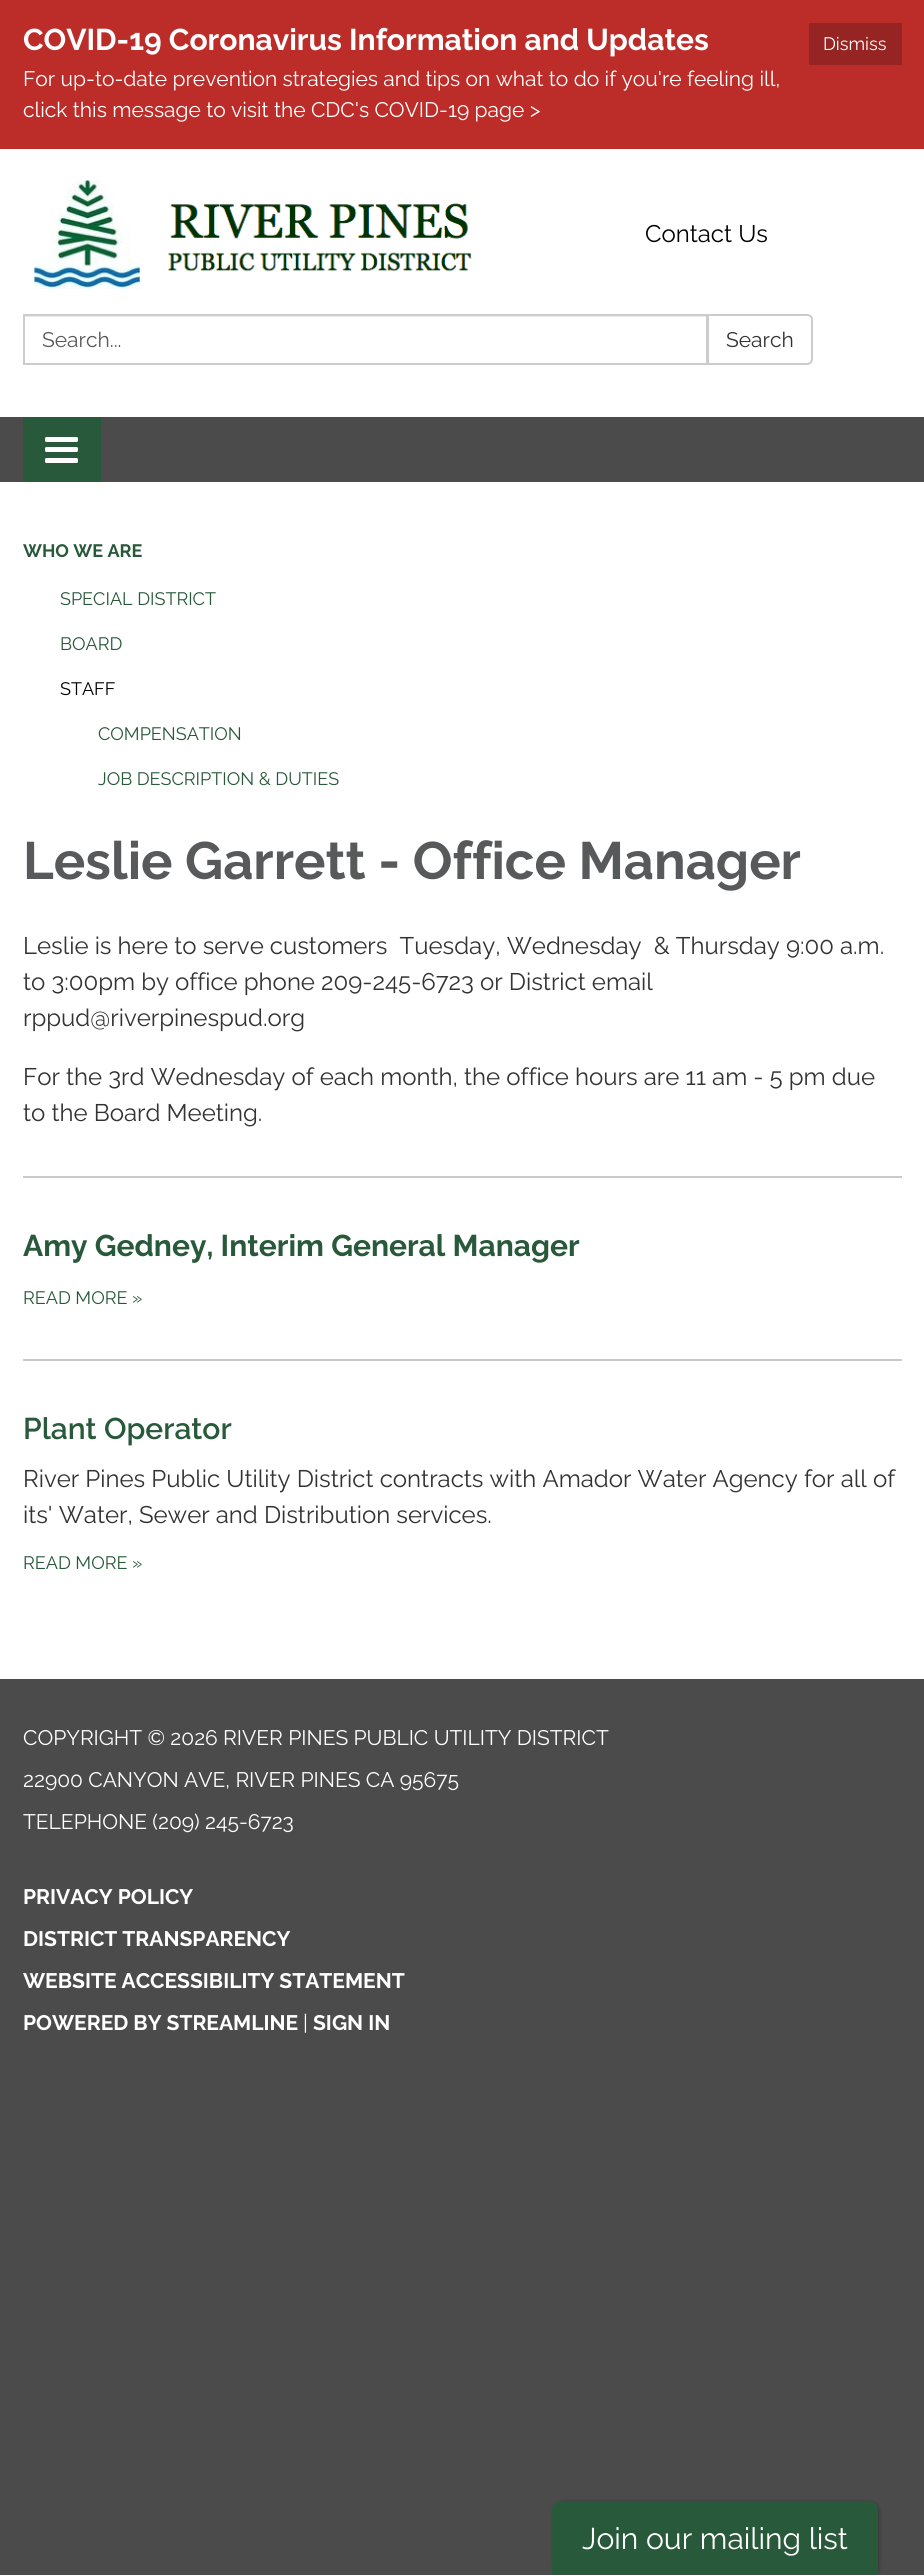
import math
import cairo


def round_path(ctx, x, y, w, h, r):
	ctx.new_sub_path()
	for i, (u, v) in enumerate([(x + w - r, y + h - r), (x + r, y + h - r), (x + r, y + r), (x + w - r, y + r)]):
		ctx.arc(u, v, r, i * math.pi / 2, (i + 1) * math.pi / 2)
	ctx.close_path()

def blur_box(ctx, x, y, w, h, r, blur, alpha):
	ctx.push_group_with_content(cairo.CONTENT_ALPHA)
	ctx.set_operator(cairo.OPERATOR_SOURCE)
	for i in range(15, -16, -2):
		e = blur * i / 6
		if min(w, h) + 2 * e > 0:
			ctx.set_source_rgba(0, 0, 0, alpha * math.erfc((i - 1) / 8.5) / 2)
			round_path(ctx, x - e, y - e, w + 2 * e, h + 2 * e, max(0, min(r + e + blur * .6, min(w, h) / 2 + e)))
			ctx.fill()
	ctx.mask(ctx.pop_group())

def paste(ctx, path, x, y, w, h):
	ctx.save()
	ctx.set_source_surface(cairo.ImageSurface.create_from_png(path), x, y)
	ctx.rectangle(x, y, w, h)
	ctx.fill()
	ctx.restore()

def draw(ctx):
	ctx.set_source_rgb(0.294, 0.294, 0.294)
	ctx.paint()
	ctx.set_source_rgb(0.737, 0.176, 0.165)
	ctx.rectangle(0, 0, 924, 149)
	ctx.fill()
	ctx.select_font_face('Raleway', cairo.FONT_SLANT_NORMAL, cairo.FONT_WEIGHT_BOLD)
	ctx.set_font_size(30)
	ctx.set_source_rgb(1, 1, 1)
	ctx.move_to(23, 50)
	ctx.show_text('COVID-19 Coronavirus Information and Updates')
	ctx.set_source_rgb(0.588, 0.141, 0.133)
	ctx.rectangle(809, 23, 93, 42)
	ctx.fill()
	ctx.select_font_face('Raleway')
	ctx.set_font_size(18)
	ctx.set_source_rgb(1, 1, 1)
	ctx.move_to(823, 50)
	ctx.show_text('Dismiss')
	ctx.set_font_size(21)
	ctx.move_to(23, 86)
	ctx.show_text('For up-to-date prevention strategies and tips on what to do if you\'re feeling ill,')
	ctx.move_to(23, 117)
	ctx.show_text('click this message to visit the CDC\'s COVID-19 page >')
	ctx.rectangle(0, 149, 924, 268)
	ctx.fill()
	paste(ctx, 'media/1.png', 34, 180, 438, 109)
	ctx.set_font_size(24)
	ctx.set_source_rgb(0, 0, 0)
	ctx.move_to(645, 242)
	ctx.show_text('Contact Us')
	ctx.set_source_rgb(0.925, 0.925, 0.925)
	ctx.rectangle(24, 316, 683, 1)
	ctx.fill()
	ctx.rectangle(24, 315, 683, 49)
	ctx.set_source_rgb(0.8, 0.8, 0.8)
	ctx.stroke()
	ctx.set_font_size(21)
	ctx.set_source_rgb(0.345, 0.349, 0.357)
	ctx.move_to(42, 347)
	ctx.show_text('Search...')
	ctx.set_source_rgb(1, 1, 1)
	ctx.new_path()
	ctx.move_to(708, 315)
	ctx.line_to(807, 315)
	ctx.curve_to(810, 315, 812, 317, 812, 320)
	ctx.line_to(812, 359)
	ctx.curve_to(812, 362, 810, 364, 807, 364)
	ctx.line_to(708, 364)
	ctx.close_path()
	ctx.fill_preserve()
	ctx.set_source_rgb(0.8, 0.8, 0.8)
	ctx.stroke()
	ctx.set_source_rgb(0.2, 0.2, 0.2)
	ctx.move_to(726, 347)
	ctx.show_text('Search')
	ctx.set_source_rgb(0.157, 0.349, 0.227)
	ctx.rectangle(23, 417, 78, 65)
	ctx.fill()
	ctx.set_source_rgb(1, 1, 1)
	round_path(ctx, 45, 437, 33, 5, 1.5)
	ctx.fill()
	round_path(ctx, 45, 447, 33, 5, 1.5)
	ctx.fill()
	round_path(ctx, 45, 458, 33, 5, 1.5)
	ctx.fill()
	ctx.rectangle(0, 482, 924, 1197)
	ctx.fill()
	ctx.select_font_face('Raleway', cairo.FONT_SLANT_NORMAL, cairo.FONT_WEIGHT_BOLD)
	ctx.set_font_size(18)
	ctx.set_source_rgb(0.157, 0.349, 0.227)
	ctx.move_to(23, 557)
	ctx.show_text('WHO WE ARE')
	ctx.select_font_face('Raleway')
	ctx.move_to(60, 605)
	ctx.show_text('SPECIAL DISTRICT')
	ctx.move_to(60, 650)
	ctx.show_text('BOARD')
	ctx.set_source_rgb(0, 0, 0)
	ctx.move_to(60, 695)
	ctx.show_text('STAFF')
	ctx.set_source_rgb(0.157, 0.349, 0.227)
	ctx.move_to(98, 740)
	ctx.show_text('COMPENSATION')
	ctx.move_to(98, 785)
	ctx.show_text('JOB DESCRIPTION & DUTIES')
	ctx.select_font_face('Raleway', cairo.FONT_SLANT_NORMAL, cairo.FONT_WEIGHT_BOLD)
	ctx.set_font_size(52.5)
	ctx.set_source_rgb(0.345, 0.349, 0.357)
	ctx.move_to(23, 879)
	ctx.show_text('Leslie Garrett - Office Manager')
	ctx.select_font_face('Raleway')
	ctx.set_font_size(24)
	ctx.set_source_rgb(0.2, 0.2, 0.2)
	for x, y, s in [
		(23, 954, 'Leslie is here to serve customers  Tuesday, Wednesday  & Thursday 9:00 a.m.'),
		(23, 990, 'to 3:00pm by office phone 209-245-6723 or District email'),
		(23, 1026, 'rppud@riverpinespud.org'),
		(23, 1085, 'For the 3rd Wednesday of each month, the office hours are 11 am - 5 pm due'),
		(23, 1121, 'to the Board Meeting.'),
	]:
		ctx.move_to(x, y)
		ctx.show_text(s)
	ctx.set_source_rgb(0.784, 0.788, 0.796)
	ctx.rectangle(23, 1176, 879, 2)
	ctx.fill()
	ctx.select_font_face('Raleway', cairo.FONT_SLANT_NORMAL, cairo.FONT_WEIGHT_BOLD)
	ctx.set_font_size(30)
	ctx.set_source_rgb(0.157, 0.349, 0.227)
	ctx.move_to(23, 1256)
	ctx.show_text('Amy Gedney, Interim General Manager')
	ctx.select_font_face('Raleway')
	ctx.set_font_size(18)
	ctx.move_to(23, 1304)
	ctx.show_text('READ MORE »')
	ctx.set_source_rgb(0.784, 0.788, 0.796)
	ctx.rectangle(23, 1359, 879, 2)
	ctx.fill()
	ctx.select_font_face('Raleway SemiBold')
	ctx.set_font_size(30)
	ctx.set_source_rgb(0.157, 0.349, 0.227)
	ctx.move_to(23, 1439)
	ctx.show_text('Plant Operator')
	ctx.select_font_face('Raleway')
	ctx.set_font_size(24)
	ctx.set_source_rgb(0.2, 0.2, 0.2)
	ctx.move_to(23, 1487)
	ctx.show_text('River Pines Public Utility District contracts with Amador Water Agency for all of')
	ctx.move_to(23, 1523)
	ctx.show_text('its\' Water, Sewer and Distribution services.')
	ctx.set_font_size(18)
	ctx.set_source_rgb(0.157, 0.349, 0.227)
	ctx.move_to(23, 1569)
	ctx.show_text('READ MORE »')
	ctx.set_font_size(21)
	ctx.set_source_rgb(1, 1, 1)
	for x, y, s in [
		(23, 1745, 'COPYRIGHT © 2026 RIVER PINES PUBLIC UTILITY DISTRICT'),
		(23, 1787, '22900 CANYON AVE, RIVER PINES CA 95675'),
		(23, 1829, 'TELEPHONE (209) 245-6723'),
	]:
		ctx.move_to(x, y)
		ctx.show_text(s)
	ctx.select_font_face('Raleway', cairo.FONT_SLANT_NORMAL, cairo.FONT_WEIGHT_BOLD)
	for x, y, s in [
		(23, 1904, 'PRIVACY POLICY'),
		(23, 1946, 'DISTRICT TRANSPARENCY'),
		(23, 1988, 'WEBSITE ACCESSIBILITY STATEMENT'),
		(23, 2030, 'POWERED BY STREAMLINE'),
	]:
		ctx.move_to(x, y)
		ctx.show_text(s)
	ctx.select_font_face('Raleway')
	ctx.move_to(303, 2030)
	ctx.show_text('|')
	ctx.select_font_face('Raleway', cairo.FONT_SLANT_NORMAL, cairo.FONT_WEIGHT_BOLD)
	ctx.move_to(313, 2030)
	ctx.show_text('SIGN IN')
	ctx.set_source_rgb(0, 0, 0)
	blur_box(ctx, 554, 2502, 325, 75, 9, 2, 0.3)
	ctx.set_source_rgb(0.157, 0.349, 0.227)
	ctx.new_path()
	ctx.move_to(561, 2501)
	ctx.line_to(869, 2501)
	ctx.curve_to(874, 2501, 878, 2505, 878, 2510)
	ctx.line_to(878, 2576)
	ctx.line_to(552, 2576)
	ctx.line_to(552, 2510)
	ctx.curve_to(552, 2505, 556, 2501, 561, 2501)
	ctx.close_path()
	ctx.fill()
	ctx.select_font_face('Raleway')
	ctx.set_font_size(30)
	ctx.set_source_rgb(1, 1, 1)
	ctx.move_to(582, 2549)
	ctx.show_text('Join our mailing list')


surface = cairo.ImageSurface(cairo.FORMAT_RGB24, 924, 2575)
ctx = cairo.Context(surface)
options = cairo.FontOptions()
options.set_hint_metrics(cairo.HINT_METRICS_OFF)
options.set_hint_style(cairo.HINT_STYLE_NONE)
ctx.set_font_options(options)
ctx.set_miter_limit(4)
draw(ctx)
surface.write_to_png('image.png')
